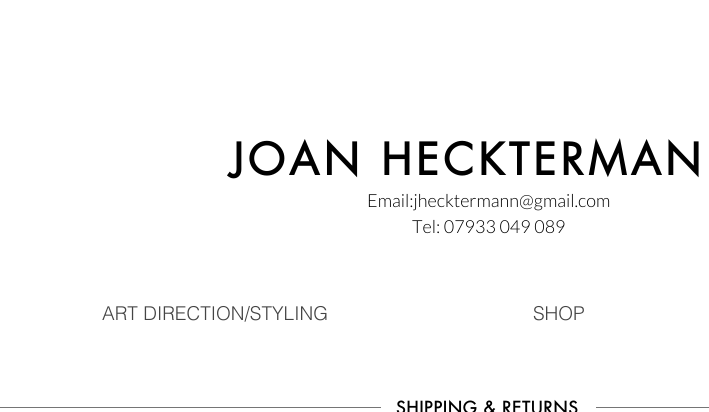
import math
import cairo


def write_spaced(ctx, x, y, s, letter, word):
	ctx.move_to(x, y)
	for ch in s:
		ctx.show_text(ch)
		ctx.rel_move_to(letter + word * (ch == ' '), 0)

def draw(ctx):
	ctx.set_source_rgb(1, 1, 1)
	ctx.paint()
	ctx.select_font_face('futura', cairo.FONT_SLANT_NORMAL, cairo.FONT_WEIGHT_BOLD)
	ctx.set_font_size(43)
	ctx.set_source_rgb(0, 0, 0)
	write_spaced(ctx, 230, 175, 'JOAN HECKTERMAN', 4.25, 0)
	ctx.select_font_face('Lato Light')
	ctx.set_font_size(18)
	ctx.move_to(367, 207)
	ctx.show_text('Email:jhecktermann@gmail.com')
	ctx.move_to(412, 233)
	ctx.show_text('Tel: 07933 049 089')
	ctx.select_font_face('helvetica Light')
	ctx.set_font_size(19)
	ctx.set_source_rgb(0.267, 0.267, 0.267)
	ctx.move_to(102, 320)
	ctx.show_text('ART DIRECTION/STYLING')
	ctx.move_to(533, 320)
	ctx.show_text('SHOP')
	ctx.set_source_rgb(0.459, 0.459, 0.459)
	ctx.rectangle(0, 407, 381, 1)
	ctx.fill()
	ctx.select_font_face('futura', cairo.FONT_SLANT_NORMAL, cairo.FONT_WEIGHT_BOLD)
	ctx.set_font_size(17)
	ctx.set_source_rgb(0, 0, 0)
	write_spaced(ctx, 396, 414, 'SHIPPING & RETURNS', 0.8, 0)
	ctx.set_source_rgb(0.459, 0.459, 0.459)
	ctx.rectangle(596, 407, 113, 1)
	ctx.fill()


surface = cairo.ImageSurface(cairo.FORMAT_RGB24, 709, 412)
ctx = cairo.Context(surface)
options = cairo.FontOptions()
options.set_hint_metrics(cairo.HINT_METRICS_OFF)
options.set_hint_style(cairo.HINT_STYLE_NONE)
ctx.set_font_options(options)
ctx.set_miter_limit(4)
draw(ctx)
surface.write_to_png('image.png')
